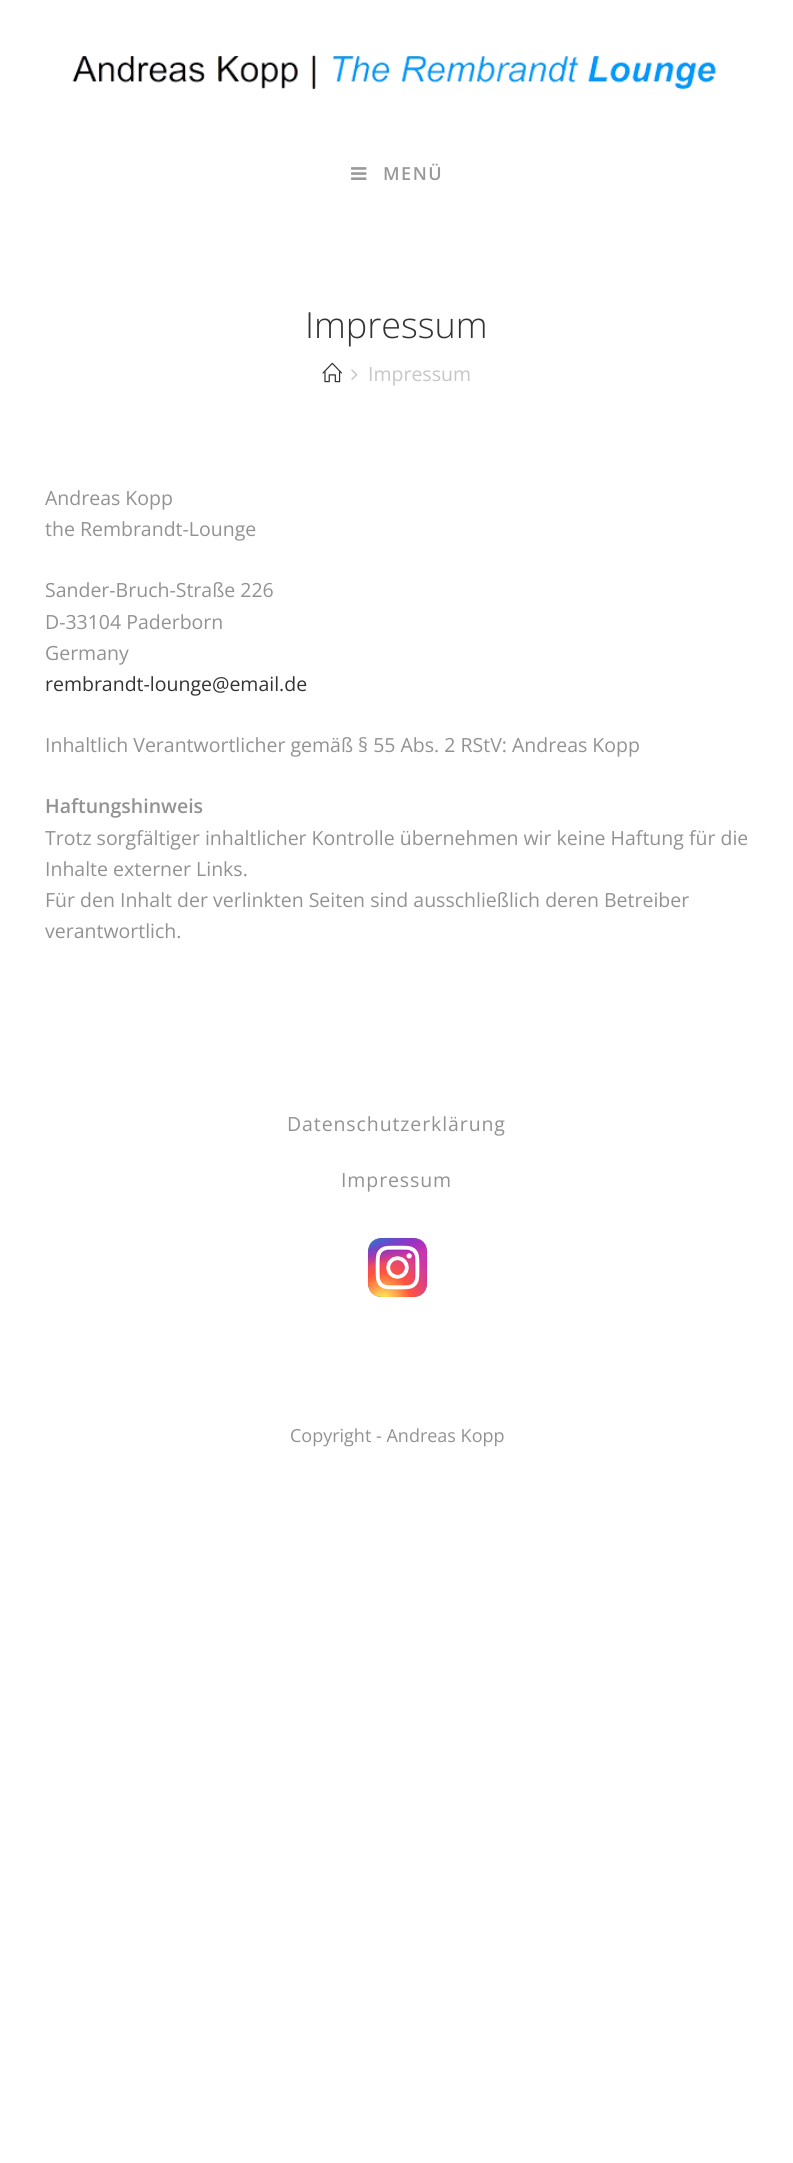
import math
import cairo


def write_spaced(ctx, x, y, s, letter, word):
	ctx.move_to(x, y)
	for ch in s:
		ctx.show_text(ch)
		ctx.rel_move_to(letter + word * (ch == ' '), 0)

def paste(ctx, path, x, y, w, h):
	ctx.save()
	ctx.set_source_surface(cairo.ImageSurface.create_from_png(path), x, y)
	ctx.rectangle(x, y, w, h)
	ctx.fill()
	ctx.restore()

def draw(ctx):
	ctx.set_source_rgb(1, 1, 1)
	ctx.paint()
	paste(ctx, 'media/1.png', 72, 54, 644, 36)
	paste(ctx, 'media/2.png', 351, 167, 16, 13)
	ctx.select_font_face('Open Sans SemiBold')
	ctx.set_font_size(18)
	ctx.set_source_rgb(0.6, 0.6, 0.6)
	write_spaced(ctx, 383, 180, 'MENÜ', 1.5, 0)
	ctx.select_font_face('Open Sans Light')
	ctx.set_font_size(36)
	ctx.set_source_rgb(0.2, 0.2, 0.2)
	ctx.move_to(305, 338)
	ctx.show_text('Impressum')
	paste(ctx, 'media/3.png', 322, 362, 20, 21)
	paste(ctx, 'media/4.png', 351, 369, 7, 11)
	ctx.select_font_face('Open Sans')
	ctx.set_font_size(19.5)
	ctx.set_source_rgb(0.776, 0.776, 0.776)
	ctx.move_to(368, 381)
	ctx.show_text('Impressum')
	ctx.set_source_rgb(0.573, 0.573, 0.573)
	for x, y, s in [
		(45, 505, 'Andreas Kopp'),
		(45, 536, 'the Rembrandt-Lounge'),
		(45, 597, 'Sander-Bruch-Straße 226'),
		(45, 629, 'D-33104 Paderborn'),
		(45, 660, 'Germany'),
	]:
		ctx.move_to(x, y)
		ctx.show_text(s)
	ctx.set_source_rgb(0.2, 0.2, 0.2)
	ctx.move_to(45, 691)
	ctx.show_text('rembrandt-lounge@email.de')
	ctx.set_source_rgb(0.573, 0.573, 0.573)
	ctx.move_to(45, 752)
	ctx.show_text('Inhaltlich Verantwortlicher gemäß § 55 Abs. 2 RStV: Andreas Kopp')
	ctx.select_font_face('Open Sans SemiBold')
	ctx.move_to(45, 813)
	ctx.show_text('Haftungshinweis')
	ctx.select_font_face('Open Sans')
	for x, y, s in [
		(45, 845, 'Trotz sorgfältiger inhaltlicher Kontrolle übernehmen wir keine Haftung für die'),
		(45, 876, 'Inhalte externer Links.'),
		(45, 907, 'Für den Inhalt der verlinkten Seiten sind ausschließlich deren Betreiber'),
		(45, 938, 'verantwortlich.'),
	]:
		ctx.move_to(x, y)
		ctx.show_text(s)
	write_spaced(ctx, 287, 1131, 'Datenschutzerklärung', 0.9, 0)
	write_spaced(ctx, 341, 1187, 'Impressum', 0.9, 0)
	paste(ctx, 'media/5.png', 367, 1237, 61, 61)
	ctx.set_font_size(18)
	ctx.move_to(290, 1442)
	ctx.show_text('Copyright - Andreas Kopp')


surface = cairo.ImageSurface(cairo.FORMAT_RGB24, 793, 2163)
ctx = cairo.Context(surface)
options = cairo.FontOptions()
options.set_hint_metrics(cairo.HINT_METRICS_OFF)
options.set_hint_style(cairo.HINT_STYLE_NONE)
ctx.set_font_options(options)
ctx.set_miter_limit(4)
draw(ctx)
surface.write_to_png('image.png')
